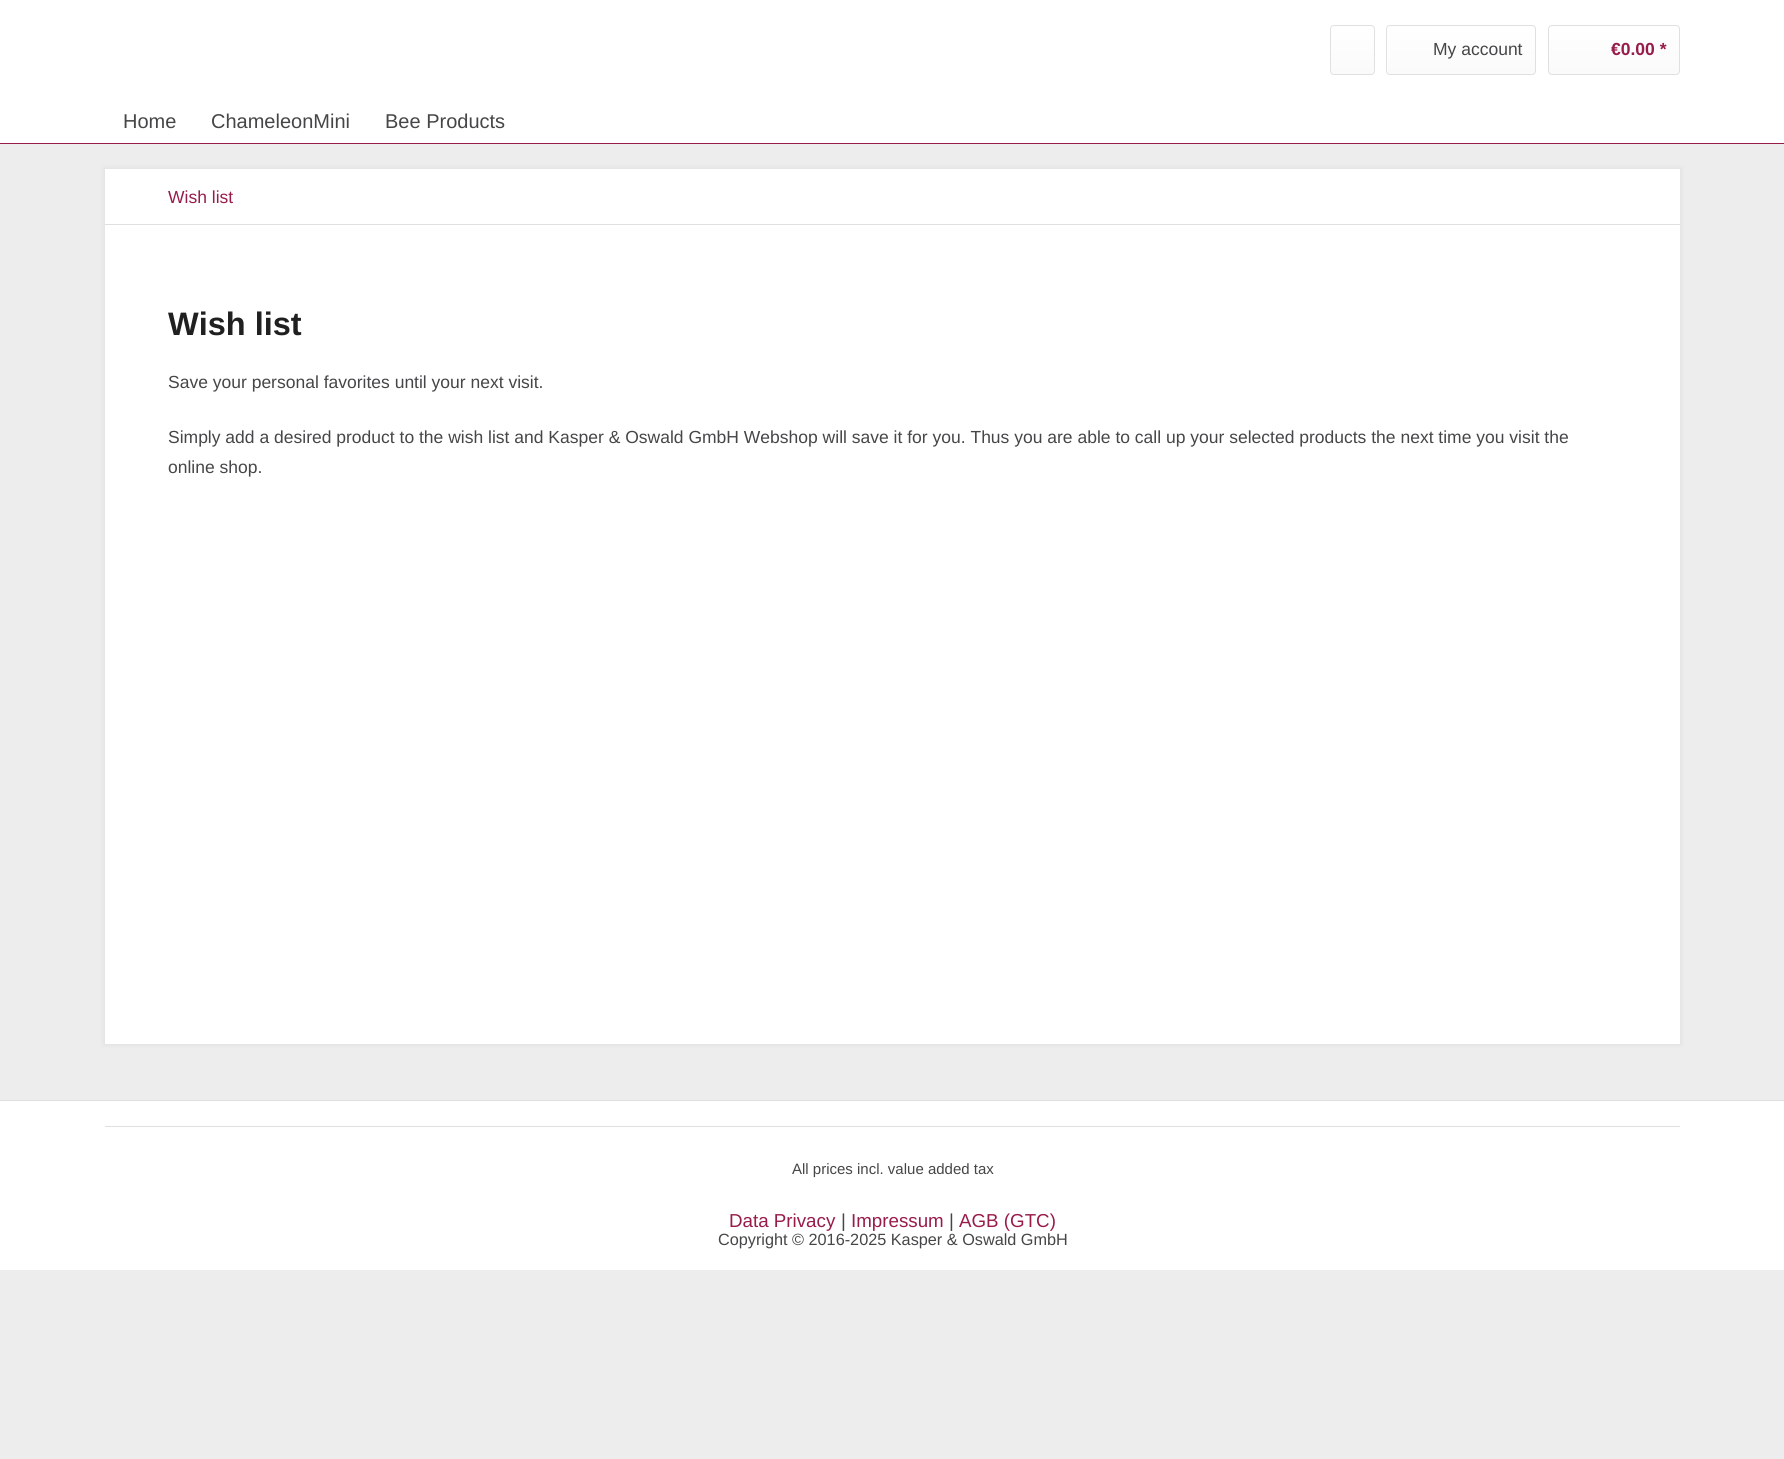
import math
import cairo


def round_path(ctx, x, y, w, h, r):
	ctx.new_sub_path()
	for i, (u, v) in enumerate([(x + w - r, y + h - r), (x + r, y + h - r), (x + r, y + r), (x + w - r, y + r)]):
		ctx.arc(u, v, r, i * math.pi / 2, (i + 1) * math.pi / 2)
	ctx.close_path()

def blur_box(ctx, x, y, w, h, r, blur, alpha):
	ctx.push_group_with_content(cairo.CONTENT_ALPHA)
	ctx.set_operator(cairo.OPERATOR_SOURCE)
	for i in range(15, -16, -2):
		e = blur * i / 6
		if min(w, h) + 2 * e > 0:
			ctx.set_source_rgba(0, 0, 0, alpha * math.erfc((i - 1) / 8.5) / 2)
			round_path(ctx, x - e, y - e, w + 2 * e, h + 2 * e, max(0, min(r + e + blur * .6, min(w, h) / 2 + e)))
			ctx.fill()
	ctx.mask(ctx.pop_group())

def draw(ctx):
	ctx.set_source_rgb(0.929, 0.929, 0.929)
	ctx.paint()
	ctx.set_source_rgb(1, 1, 1)
	ctx.rectangle(0, 0, 1784, 143)
	ctx.fill()
	gradient = cairo.LinearGradient(1353, 26, 1353, 74)
	gradient.add_color_stop_rgba(0, 1, 1, 1, 1)
	gradient.add_color_stop_rgba(1, 0.98, 0.98, 0.98, 1)
	ctx.set_source(gradient)
	round_path(ctx, 1331, 26, 43, 48, 2.5)
	ctx.fill()
	round_path(ctx, 1330.5, 25.5, 44, 49, 3.5)
	ctx.set_source_rgb(0.878, 0.878, 0.878)
	ctx.set_line_width(1)
	ctx.stroke()
	gradient = cairo.LinearGradient(1461, 26, 1461, 74)
	gradient.add_color_stop_rgba(0, 1, 1, 1, 1)
	gradient.add_color_stop_rgba(1, 0.98, 0.98, 0.98, 1)
	ctx.set_source(gradient)
	round_path(ctx, 1388, 26, 147, 48, 2.5)
	ctx.fill()
	round_path(ctx, 1386.5, 25.5, 149, 49, 3.5)
	ctx.set_source_rgb(0.878, 0.878, 0.878)
	ctx.stroke()
	ctx.select_font_face('Liberation Sans')
	ctx.set_font_size(17.5)
	ctx.set_source_rgb(0.275, 0.275, 0.282)
	ctx.move_to(1433, 55)
	ctx.show_text('My account')
	gradient = cairo.LinearGradient(1614, 26, 1614, 74)
	gradient.add_color_stop_rgba(0, 1, 1, 1, 1)
	gradient.add_color_stop_rgba(1, 0.98, 0.98, 0.98, 1)
	ctx.set_source(gradient)
	round_path(ctx, 1549, 26, 130, 48, 2.5)
	ctx.fill()
	round_path(ctx, 1548.5, 25.5, 131, 49, 3.5)
	ctx.set_source_rgb(0.878, 0.878, 0.878)
	ctx.stroke()
	ctx.select_font_face('Liberation Sans', cairo.FONT_SLANT_NORMAL, cairo.FONT_WEIGHT_BOLD)
	ctx.set_source_rgb(0.596, 0.11, 0.29)
	ctx.move_to(1611, 55)
	ctx.show_text('€0.00 *')
	ctx.rectangle(0, 143, 1784, 1)
	ctx.fill()
	ctx.select_font_face('Liberation Sans')
	ctx.set_font_size(20)
	ctx.set_source_rgb(0.275, 0.275, 0.282)
	for x, y, s in [
		(123, 128, 'Home'),
		(211, 128, 'ChameleonMini'),
		(385, 128, 'Bee Products'),
	]:
		ctx.move_to(x, y)
		ctx.show_text(s)
	ctx.set_source_rgb(0.878, 0.878, 0.878)
	blur_box(ctx, 104, 168, 1577, 877, 0, 2.5, 1)
	ctx.set_source_rgb(1, 1, 1)
	ctx.rectangle(105, 169, 1575, 875)
	ctx.fill()
	ctx.set_source_rgb(0.878, 0.878, 0.878)
	ctx.rectangle(105, 224, 1575, 1)
	ctx.fill()
	ctx.set_font_size(17.5)
	ctx.set_source_rgb(0.596, 0.11, 0.29)
	ctx.move_to(168, 203)
	ctx.show_text('Wish list')
	ctx.select_font_face('Liberation Sans', cairo.FONT_SLANT_NORMAL, cairo.FONT_WEIGHT_BOLD)
	ctx.set_font_size(32.5)
	ctx.set_source_rgb(0.125, 0.125, 0.129)
	ctx.move_to(168, 335)
	ctx.show_text('Wish list')
	ctx.select_font_face('Liberation Sans')
	ctx.set_font_size(17.5)
	ctx.set_source_rgb(0.275, 0.275, 0.282)
	for x, y, s in [
		(168, 388, 'Save your personal favorites until your next visit.'),
		(168, 443, 'Simply add a desired product to the wish list and Kasper & Oswald GmbH Webshop will save it for you. Thus you are able to call up your selected products the next time you visit the'),
		(168, 473, 'online shop.'),
	]:
		ctx.move_to(x, y)
		ctx.show_text(s)
	ctx.set_source_rgb(1, 1, 1)
	ctx.rectangle(0, 1101, 1784, 169)
	ctx.fill()
	ctx.set_source_rgb(0.878, 0.878, 0.878)
	ctx.rectangle(0, 1100, 1784, 1)
	ctx.rectangle(105, 1126, 1575, 1)
	ctx.fill()
	ctx.set_font_size(15)
	ctx.set_source_rgb(0.275, 0.275, 0.282)
	ctx.move_to(792, 1174)
	ctx.show_text('All prices incl. value added tax')
	ctx.set_font_size(18.75)
	ctx.set_source_rgb(0.596, 0.11, 0.29)
	ctx.move_to(729, 1227)
	ctx.show_text('Data Privacy')
	ctx.set_source_rgb(0.275, 0.275, 0.282)
	ctx.move_to(841, 1227)
	ctx.show_text('|')
	ctx.set_source_rgb(0.596, 0.11, 0.29)
	ctx.move_to(851, 1227)
	ctx.show_text('Impressum')
	ctx.set_source_rgb(0.275, 0.275, 0.282)
	ctx.move_to(949, 1227)
	ctx.show_text('|')
	ctx.set_source_rgb(0.596, 0.11, 0.29)
	ctx.move_to(959, 1227)
	ctx.show_text('AGB (GTC)')
	ctx.set_font_size(16.25)
	ctx.set_source_rgb(0.275, 0.275, 0.282)
	ctx.move_to(718, 1245)
	ctx.show_text('Copyright © 2016-2025 Kasper & Oswald GmbH')


surface = cairo.ImageSurface(cairo.FORMAT_RGB24, 1784, 1459)
ctx = cairo.Context(surface)
options = cairo.FontOptions()
options.set_hint_metrics(cairo.HINT_METRICS_OFF)
options.set_hint_style(cairo.HINT_STYLE_NONE)
ctx.set_font_options(options)
ctx.set_miter_limit(4)
draw(ctx)
surface.write_to_png('image.png')
